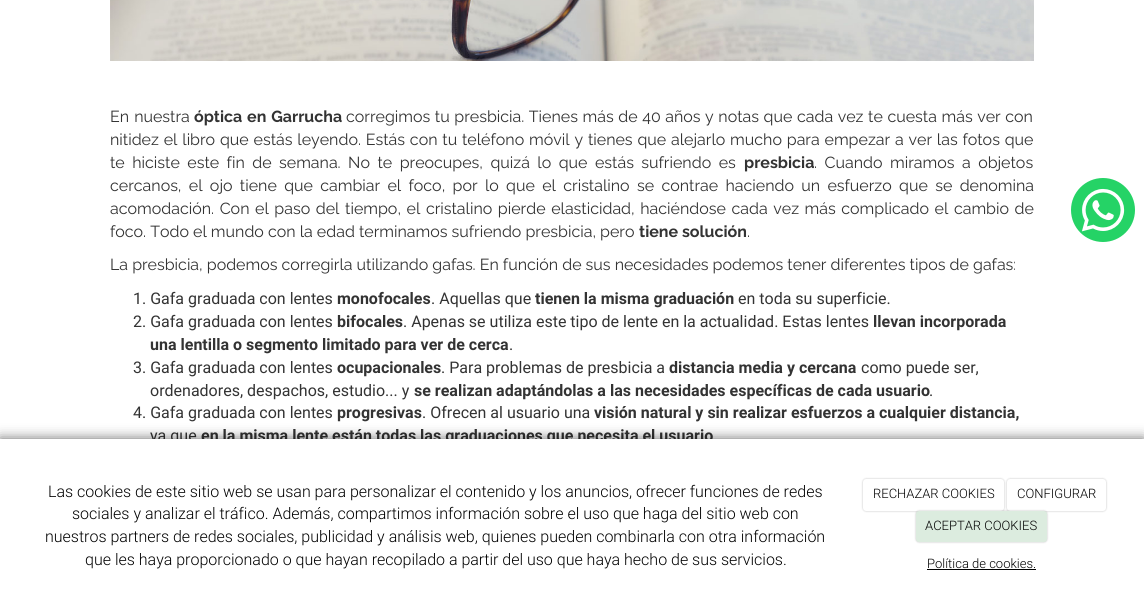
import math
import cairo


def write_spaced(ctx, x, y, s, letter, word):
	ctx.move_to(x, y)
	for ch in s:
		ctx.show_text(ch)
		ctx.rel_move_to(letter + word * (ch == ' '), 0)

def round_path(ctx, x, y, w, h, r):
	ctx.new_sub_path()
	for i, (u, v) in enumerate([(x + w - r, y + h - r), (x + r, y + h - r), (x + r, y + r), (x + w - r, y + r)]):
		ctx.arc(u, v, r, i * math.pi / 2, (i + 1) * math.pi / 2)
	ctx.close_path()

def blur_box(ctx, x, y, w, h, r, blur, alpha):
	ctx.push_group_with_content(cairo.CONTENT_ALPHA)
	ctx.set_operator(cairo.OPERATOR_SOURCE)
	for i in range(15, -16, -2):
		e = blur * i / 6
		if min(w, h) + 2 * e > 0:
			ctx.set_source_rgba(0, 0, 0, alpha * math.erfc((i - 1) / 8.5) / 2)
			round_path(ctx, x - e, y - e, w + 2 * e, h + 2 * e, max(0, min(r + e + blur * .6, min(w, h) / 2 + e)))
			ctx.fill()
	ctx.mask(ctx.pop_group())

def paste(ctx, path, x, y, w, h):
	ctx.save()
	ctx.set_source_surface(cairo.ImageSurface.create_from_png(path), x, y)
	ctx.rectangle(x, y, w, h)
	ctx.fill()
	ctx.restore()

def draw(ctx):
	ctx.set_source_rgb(1, 1, 1)
	ctx.paint()
	paste(ctx, 'media/1.png', 110, 0, 924, 61)
	ctx.select_font_face('Raleway Thin')
	ctx.set_font_size(16)
	ctx.set_source_rgb(0.2, 0.2, 0.2)
	write_spaced(ctx, 110, 122, 'En nuestra', 0, 1)
	ctx.select_font_face('Raleway', cairo.FONT_SLANT_NORMAL, cairo.FONT_WEIGHT_BOLD)
	write_spaced(ctx, 194, 122, 'óptica en Garrucha', 0, 1)
	ctx.select_font_face('Raleway Thin')
	write_spaced(ctx, 346, 122, 'corregimos tu presbicia. Tienes más de 40 años y notas que cada vez te cuesta más ver con', 0, 0.5)
	write_spaced(ctx, 110, 145, 'nitidez el libro que estás leyendo. Estás con tu teléfono móvil y tienes que alejarlo mucho para empezar a ver las fotos que', 0, 0.75)
	write_spaced(ctx, 110, 168, 'te hiciste este fin de semana. No te preocupes, quizá lo que estás sufriendo es', 0, 3.4)
	ctx.select_font_face('Raleway', cairo.FONT_SLANT_NORMAL, cairo.FONT_WEIGHT_BOLD)
	ctx.move_to(744, 168)
	ctx.show_text('presbicia')
	ctx.select_font_face('Raleway Thin')
	write_spaced(ctx, 814, 168, '. Cuando miramos a objetos', 0, 3.4)
	write_spaced(ctx, 110, 191, 'cercanos, el ojo tiene que cambiar el foco, por lo que el cristalino se contrae haciendo un esfuerzo que se denomina', 0, 3.25)
	write_spaced(ctx, 110, 214, 'acomodación. Con el paso del tiempo, el cristalino pierde elasticidad, haciéndose cada vez más complicado el cambio de', 0, 1.5)
	ctx.move_to(110, 237)
	ctx.show_text('foco. Todo el mundo con la edad terminamos sufriendo presbicia, pero')
	ctx.select_font_face('Raleway', cairo.FONT_SLANT_NORMAL, cairo.FONT_WEIGHT_BOLD)
	ctx.move_to(639, 237)
	ctx.show_text('tiene solución')
	ctx.select_font_face('Raleway Thin')
	ctx.move_to(747, 237)
	ctx.show_text('.')
	ctx.move_to(110, 270)
	ctx.show_text('La presbicia, podemos corregirla utilizando gafas. En función de sus necesidades podemos tener diferentes tipos de gafas:')
	ctx.select_font_face('Roboto')
	ctx.move_to(133, 304)
	ctx.show_text('1. Gafa graduada con lentes')
	ctx.select_font_face('Roboto', cairo.FONT_SLANT_NORMAL, cairo.FONT_WEIGHT_BOLD)
	ctx.move_to(337, 304)
	ctx.show_text('monofocales')
	ctx.select_font_face('Roboto')
	ctx.move_to(431, 304)
	ctx.show_text('. Aquellas que')
	ctx.select_font_face('Roboto', cairo.FONT_SLANT_NORMAL, cairo.FONT_WEIGHT_BOLD)
	ctx.move_to(535, 304)
	ctx.show_text('tienen la misma graduación')
	ctx.select_font_face('Roboto')
	ctx.move_to(738, 304)
	ctx.show_text('en toda su superficie.')
	ctx.move_to(133, 327)
	ctx.show_text('2. Gafa graduada con lentes')
	ctx.select_font_face('Roboto', cairo.FONT_SLANT_NORMAL, cairo.FONT_WEIGHT_BOLD)
	ctx.move_to(337, 327)
	ctx.show_text('bifocales')
	ctx.select_font_face('Roboto')
	ctx.move_to(403, 327)
	ctx.show_text('. Apenas se utiliza este tipo de lente en la actualidad. Estas lentes')
	ctx.select_font_face('Roboto', cairo.FONT_SLANT_NORMAL, cairo.FONT_WEIGHT_BOLD)
	ctx.move_to(873, 327)
	ctx.show_text('llevan incorporada')
	ctx.move_to(150, 350)
	ctx.show_text('una lentilla o segmento limitado para ver de cerca')
	ctx.select_font_face('Roboto')
	ctx.move_to(509, 350)
	ctx.show_text('.')
	ctx.move_to(133, 373)
	ctx.show_text('3. Gafa graduada con lentes')
	ctx.select_font_face('Roboto', cairo.FONT_SLANT_NORMAL, cairo.FONT_WEIGHT_BOLD)
	ctx.move_to(337, 373)
	ctx.show_text('ocupacionales')
	ctx.select_font_face('Roboto')
	ctx.move_to(441, 373)
	ctx.show_text('. Para problemas de presbicia a')
	ctx.select_font_face('Roboto', cairo.FONT_SLANT_NORMAL, cairo.FONT_WEIGHT_BOLD)
	ctx.move_to(669, 373)
	ctx.show_text('distancia media y cercana')
	ctx.select_font_face('Roboto')
	ctx.move_to(861, 373)
	ctx.show_text('como puede ser,')
	ctx.move_to(150, 396)
	ctx.show_text('ordenadores, despachos, estudio... y')
	ctx.select_font_face('Roboto', cairo.FONT_SLANT_NORMAL, cairo.FONT_WEIGHT_BOLD)
	ctx.move_to(414, 396)
	ctx.show_text('se realizan adaptándolas a las necesidades específicas de cada usuario')
	ctx.select_font_face('Roboto')
	ctx.move_to(929, 396)
	ctx.show_text('.')
	ctx.move_to(133, 418)
	ctx.show_text('4. Gafa graduada con lentes')
	ctx.select_font_face('Roboto', cairo.FONT_SLANT_NORMAL, cairo.FONT_WEIGHT_BOLD)
	ctx.move_to(337, 418)
	ctx.show_text('progresivas')
	ctx.select_font_face('Roboto')
	ctx.move_to(422, 418)
	ctx.show_text('. Ofrecen al usuario una')
	ctx.select_font_face('Roboto', cairo.FONT_SLANT_NORMAL, cairo.FONT_WEIGHT_BOLD)
	ctx.move_to(594, 418)
	ctx.show_text('visión natural y sin realizar esfuerzos a cualquier distancia,')
	ctx.select_font_face('Roboto')
	ctx.move_to(150, 441)
	ctx.show_text('ya que')
	ctx.select_font_face('Roboto', cairo.FONT_SLANT_NORMAL, cairo.FONT_WEIGHT_BOLD)
	ctx.move_to(201, 441)
	ctx.show_text('en la misma lente están todas las graduaciones que necesita el usuario')
	paste(ctx, 'media/2.png', 1071, 178, 64, 64)
	ctx.set_source_rgb(0, 0, 0)
	blur_box(ctx, 0, 439, 1144, 175, 0, 6.5, 0.6)
	ctx.set_source_rgb(1, 1, 1)
	ctx.rectangle(0, 439, 1144, 175)
	ctx.fill()
	ctx.select_font_face('Roboto Light')
	ctx.set_source_rgb(0, 0, 0)
	for x, y, s in [
		(48, 497, 'Las cookies de este sitio web se usan para personalizar el contenido y los anuncios, ofrecer funciones de redes'),
		(72, 519, 'sociales y analizar el tráfico. Además, compartimos información sobre el uso que haga del sitio web con'),
		(45, 542, 'nuestros partners de redes sociales, publicidad y análisis web, quienes pueden combinarla con otra información'),
		(85, 565, 'que les haya proporcionado o que hayan recopilado a partir del uso que haya hecho de sus servicios.'),
	]:
		ctx.move_to(x, y)
		ctx.show_text(s)
	ctx.set_source_rgb(0, 0, 0)
	blur_box(ctx, 863, 479, 141, 32, 3, 1, 0.25)
	ctx.set_source_rgb(1, 1, 1)
	round_path(ctx, 863, 479, 141, 32, 3)
	ctx.fill()
	ctx.set_font_size(13)
	ctx.set_source_rgb(0, 0, 0)
	ctx.move_to(873, 498)
	ctx.show_text('RECHAZAR COOKIES')
	ctx.set_source_rgb(0, 0, 0)
	blur_box(ctx, 1007, 479, 99, 32, 3, 1, 0.25)
	ctx.set_source_rgb(1, 1, 1)
	round_path(ctx, 1007, 479, 99, 32, 3)
	ctx.fill()
	ctx.set_source_rgb(0, 0, 0)
	ctx.move_to(1017, 498)
	ctx.show_text('CONFIGURAR')
	ctx.set_source_rgb(0, 0, 0)
	blur_box(ctx, 916, 511, 131, 31, 3, 1, 0.25)
	ctx.set_source_rgb(0.863, 0.925, 0.875)
	round_path(ctx, 916, 511, 131, 31, 3)
	ctx.fill()
	ctx.set_source_rgb(0, 0, 0)
	ctx.move_to(925, 530)
	ctx.show_text('ACEPTAR COOKIES')
	ctx.move_to(927, 568)
	ctx.show_text('Política de cookies.')
	ctx.rectangle(927, 569, 109, 1)
	ctx.fill()


surface = cairo.ImageSurface(cairo.FORMAT_RGB24, 1144, 614)
ctx = cairo.Context(surface)
options = cairo.FontOptions()
options.set_hint_metrics(cairo.HINT_METRICS_OFF)
options.set_hint_style(cairo.HINT_STYLE_NONE)
ctx.set_font_options(options)
ctx.set_miter_limit(4)
draw(ctx)
surface.write_to_png('image.png')
